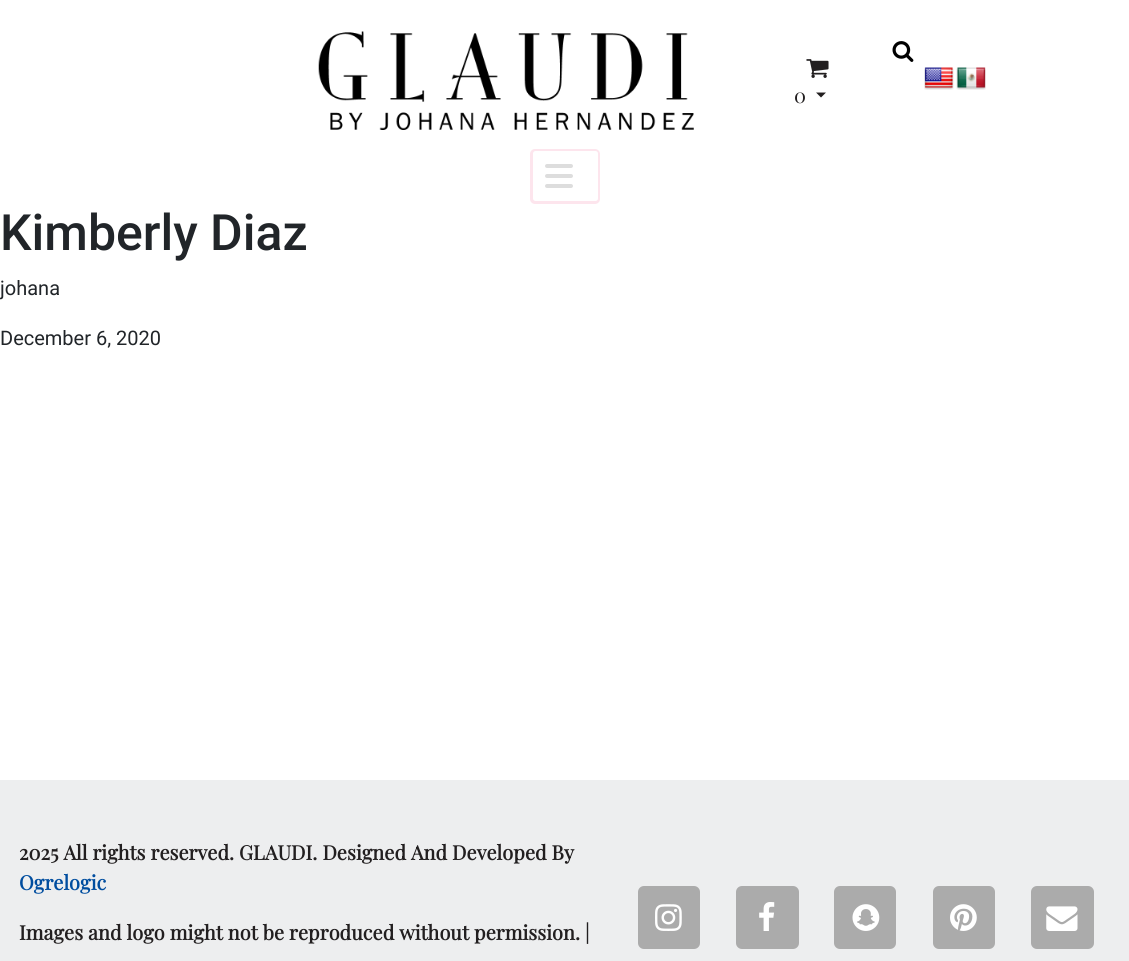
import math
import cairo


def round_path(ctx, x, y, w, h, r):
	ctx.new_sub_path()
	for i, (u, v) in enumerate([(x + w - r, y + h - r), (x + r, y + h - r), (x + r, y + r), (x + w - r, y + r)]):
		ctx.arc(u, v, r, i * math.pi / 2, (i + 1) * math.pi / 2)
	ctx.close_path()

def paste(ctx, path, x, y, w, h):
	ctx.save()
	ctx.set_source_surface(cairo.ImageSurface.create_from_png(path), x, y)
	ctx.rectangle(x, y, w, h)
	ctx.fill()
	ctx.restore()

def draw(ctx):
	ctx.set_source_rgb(1, 1, 1)
	ctx.paint()
	paste(ctx, 'media/1.png', 318, 31, 376, 99)
	paste(ctx, 'media/2.png', 892, 41, 22, 21)
	paste(ctx, 'media/3.png', 924, 67, 30, 23)
	paste(ctx, 'media/4.png', 956, 67, 30, 23)
	paste(ctx, 'media/5.png', 806, 59, 23, 19)
	ctx.select_font_face('Playfair Display')
	ctx.set_font_size(20)
	ctx.set_source_rgb(0.133, 0.122, 0.125)
	ctx.move_to(794, 103)
	ctx.show_text('0')
	ctx.new_path()
	ctx.move_to(816, 92.5)
	ctx.line_to(826, 92.5)
	ctx.line_to(821, 97.5)
	ctx.close_path()
	ctx.fill()
	ctx.set_source_rgb(0.992, 0.898, 0.929)
	round_path(ctx, 530, 149, 70, 55, 5)
	ctx.fill()
	ctx.set_source_rgb(1, 1, 1)
	round_path(ctx, 533, 151, 65, 50, 2.5)
	ctx.fill()
	ctx.set_source_rgb(0.867, 0.867, 0.867)
	round_path(ctx, 545, 164, 28, 4, 2)
	ctx.fill()
	round_path(ctx, 545, 174, 28, 4, 2)
	ctx.fill()
	round_path(ctx, 545, 184, 28, 4, 2)
	ctx.fill()
	ctx.select_font_face('Roboto Medium')
	ctx.set_font_size(50)
	ctx.set_source_rgb(0.129, 0.145, 0.161)
	ctx.move_to(0, 250)
	ctx.show_text('Kimberly Diaz')
	ctx.select_font_face('Roboto')
	ctx.set_font_size(20)
	ctx.move_to(0, 295)
	ctx.show_text('johana')
	ctx.move_to(0, 345)
	ctx.show_text('December 6, 2020')
	ctx.set_source_rgb(0.929, 0.933, 0.937)
	ctx.rectangle(0, 780, 1129, 181)
	ctx.fill()
	ctx.select_font_face('Playfair Display', cairo.FONT_SLANT_NORMAL, cairo.FONT_WEIGHT_BOLD)
	ctx.set_source_rgb(0.133, 0.122, 0.125)
	ctx.move_to(19, 860)
	ctx.show_text('2025 All rights reserved. GLAUDI. Designed And Developed By')
	ctx.set_source_rgb(0, 0.302, 0.624)
	ctx.move_to(19, 890)
	ctx.show_text('Ogrelogic')
	ctx.set_source_rgb(0.133, 0.122, 0.125)
	ctx.move_to(19, 940)
	ctx.show_text('Images and logo might not be reproduced without permission. |')
	ctx.set_source_rgb(0.671, 0.671, 0.671)
	round_path(ctx, 638, 886, 62, 63, 6)
	ctx.fill()
	paste(ctx, 'media/6.png', 655, 904, 27, 27)
	round_path(ctx, 736, 886, 63, 63, 6)
	ctx.fill()
	paste(ctx, 'media/7.png', 759, 902, 16, 29)
	round_path(ctx, 834, 886, 62, 63, 6)
	ctx.fill()
	paste(ctx, 'media/8.png', 852, 904, 28, 27)
	round_path(ctx, 933, 886, 62, 63, 6)
	ctx.fill()
	paste(ctx, 'media/9.png', 950, 904, 27, 27)
	round_path(ctx, 1031, 886, 63, 63, 6)
	ctx.fill()
	paste(ctx, 'media/10.png', 1046, 906, 32, 25)


surface = cairo.ImageSurface(cairo.FORMAT_RGB24, 1129, 961)
ctx = cairo.Context(surface)
options = cairo.FontOptions()
options.set_hint_metrics(cairo.HINT_METRICS_OFF)
options.set_hint_style(cairo.HINT_STYLE_NONE)
ctx.set_font_options(options)
ctx.set_miter_limit(4)
draw(ctx)
surface.write_to_png('image.png')
